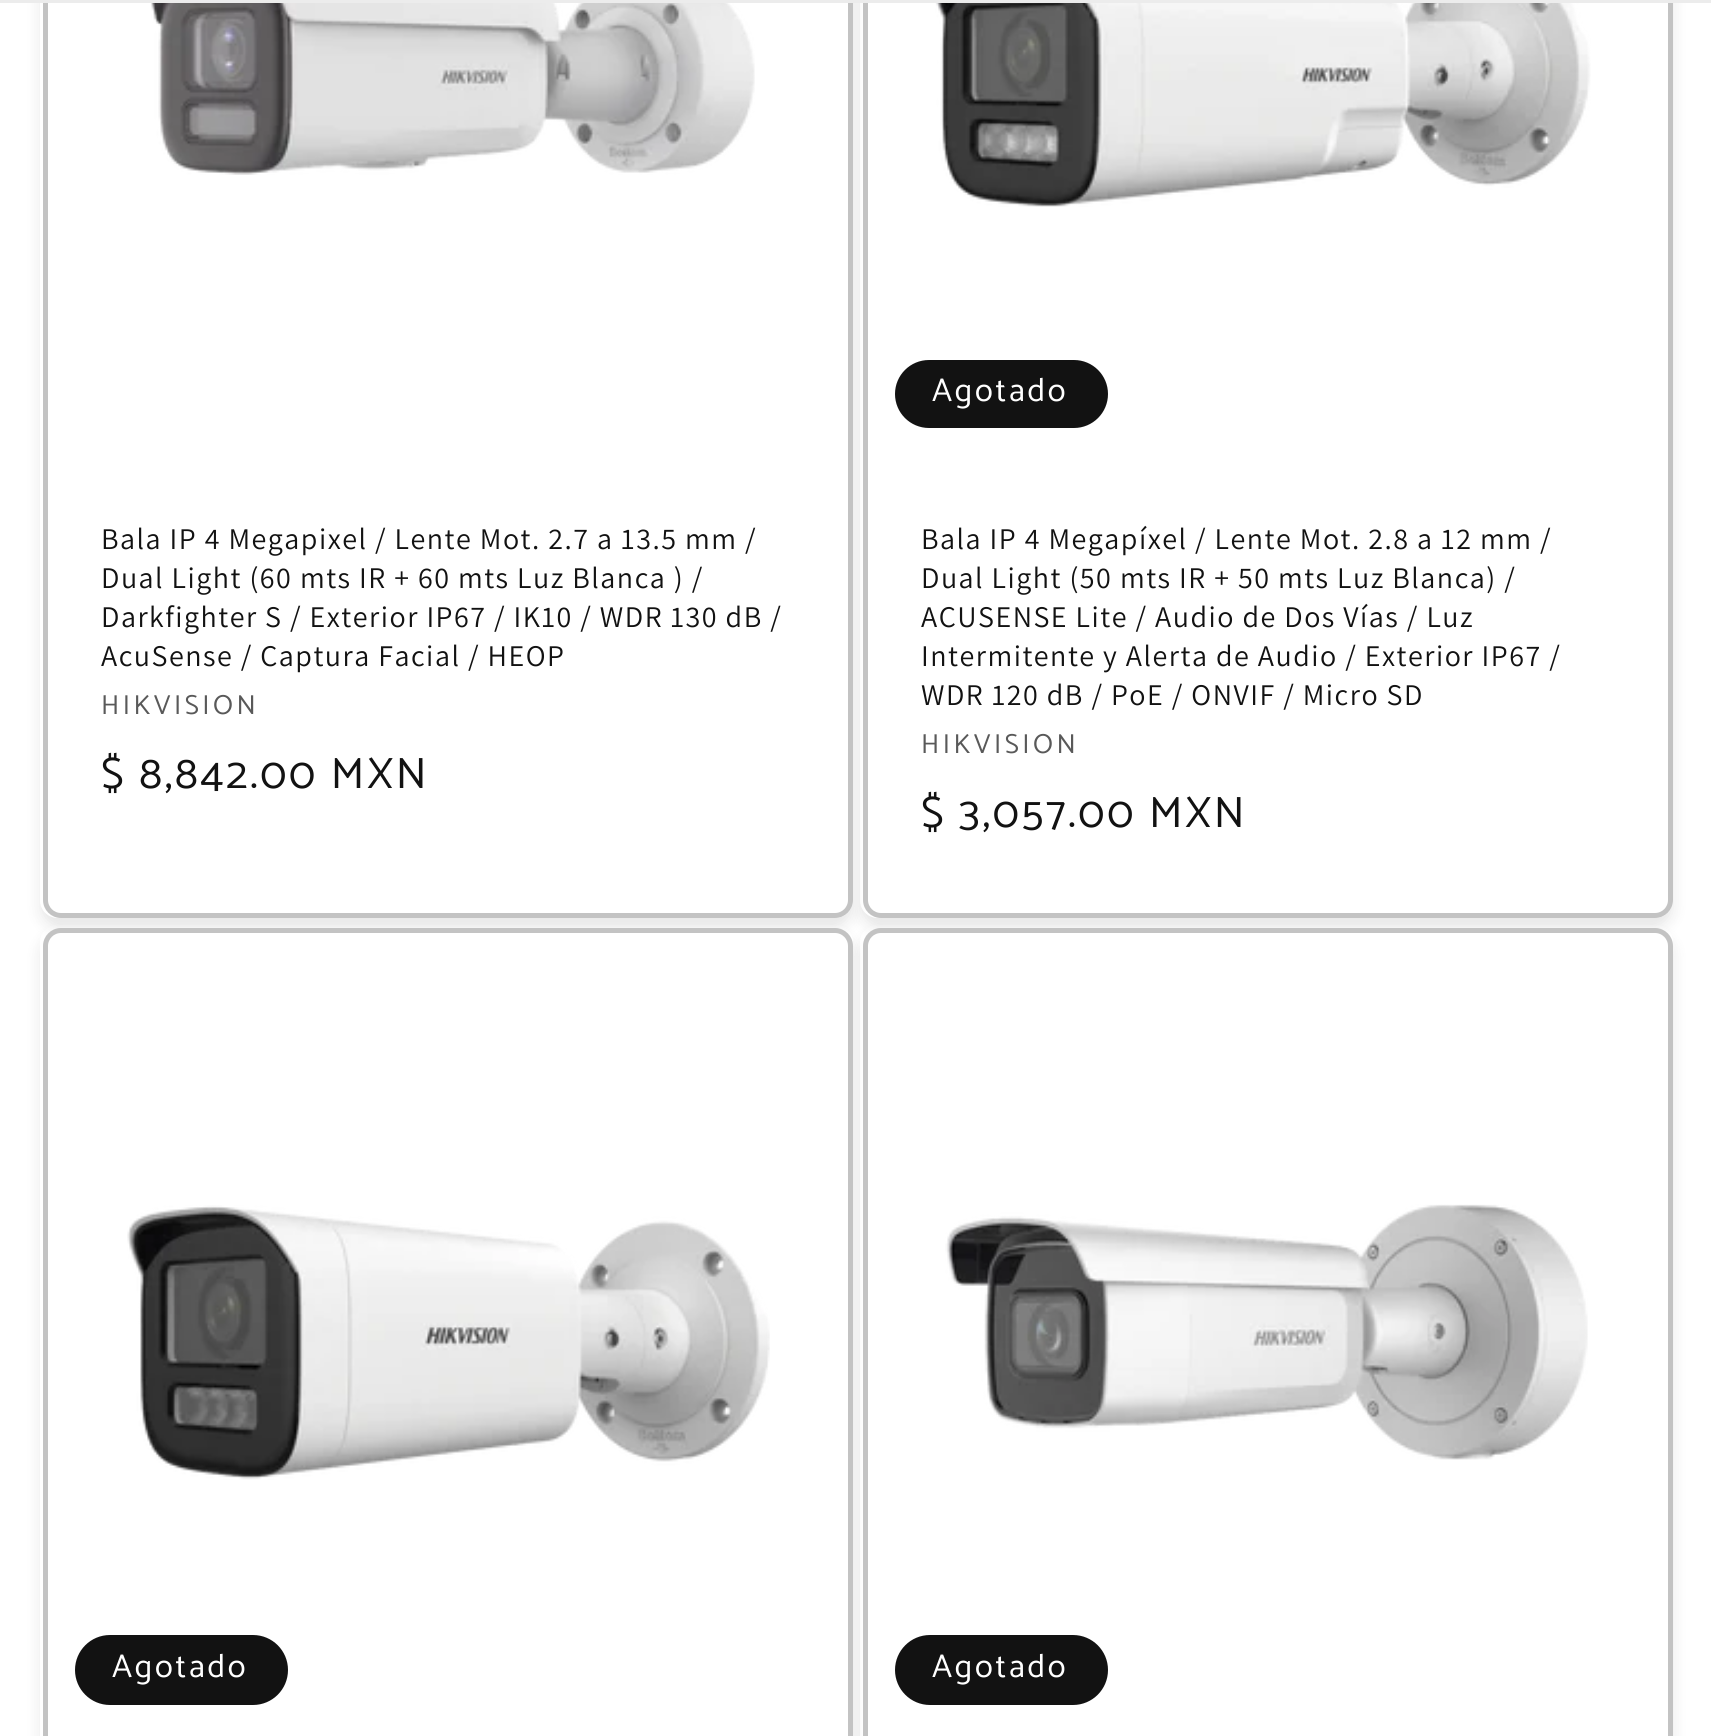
import math
import cairo


def write_spaced(ctx, x, y, s, letter, word):
	ctx.move_to(x, y)
	for ch in s:
		ctx.show_text(ch)
		ctx.rel_move_to(letter + word * (ch == ' '), 0)

def round_path(ctx, x, y, w, h, r):
	ctx.new_sub_path()
	for i, (u, v) in enumerate([(x + w - r, y + h - r), (x + r, y + h - r), (x + r, y + r), (x + w - r, y + r)]):
		ctx.arc(u, v, r, i * math.pi / 2, (i + 1) * math.pi / 2)
	ctx.close_path()

def blur_box(ctx, x, y, w, h, r, blur, alpha):
	ctx.push_group_with_content(cairo.CONTENT_ALPHA)
	ctx.set_operator(cairo.OPERATOR_SOURCE)
	for i in range(15, -16, -2):
		e = blur * i / 6
		if min(w, h) + 2 * e > 0:
			ctx.set_source_rgba(0, 0, 0, alpha * math.erfc((i - 1) / 8.5) / 2)
			round_path(ctx, x - e, y - e, w + 2 * e, h + 2 * e, max(0, min(r + e + blur * .6, min(w, h) / 2 + e)))
			ctx.fill()
	ctx.mask(ctx.pop_group())

def paste(ctx, path, x, y, w, h):
	ctx.save()
	ctx.set_source_surface(cairo.ImageSurface.create_from_png(path), x, y)
	ctx.rectangle(x, y, w, h)
	ctx.fill()
	ctx.restore()

def draw(ctx):
	ctx.set_source_rgb(1, 1, 1)
	ctx.paint()
	ctx.save()
	ctx.set_fill_rule(cairo.FILL_RULE_EVEN_ODD)
	ctx.new_path()
	ctx.move_to(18, 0)
	ctx.line_to(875, 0)
	ctx.line_to(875, 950)
	ctx.line_to(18, 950)
	ctx.close_path()
	ctx.move_to(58, -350)
	ctx.line_to(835, -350)
	ctx.curve_to(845, -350, 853, -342, 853, -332)
	ctx.line_to(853, 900)
	ctx.curve_to(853, 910, 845, 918, 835, 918)
	ctx.line_to(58, 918)
	ctx.curve_to(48, 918, 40, 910, 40, 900)
	ctx.line_to(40, -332)
	ctx.curve_to(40, -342, 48, -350, 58, -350)
	ctx.close_path()
	ctx.clip()
	ctx.set_source_rgb(0.071, 0.071, 0.071)
	blur_box(ctx, 40, -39, 813, 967, 18, 7, 0.1)
	ctx.restore()
	ctx.save()
	ctx.set_fill_rule(cairo.FILL_RULE_EVEN_ODD)
	ctx.new_path()
	ctx.move_to(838, 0)
	ctx.line_to(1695, 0)
	ctx.line_to(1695, 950)
	ctx.line_to(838, 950)
	ctx.close_path()
	ctx.move_to(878, -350)
	ctx.line_to(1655, -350)
	ctx.curve_to(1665, -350, 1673, -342, 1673, -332)
	ctx.line_to(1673, 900)
	ctx.curve_to(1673, 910, 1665, 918, 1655, 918)
	ctx.line_to(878, 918)
	ctx.curve_to(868, 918, 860, 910, 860, 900)
	ctx.line_to(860, -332)
	ctx.curve_to(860, -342, 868, -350, 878, -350)
	ctx.close_path()
	ctx.clip()
	ctx.set_source_rgb(0.071, 0.071, 0.071)
	blur_box(ctx, 860, -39, 813, 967, 18, 7, 0.1)
	ctx.restore()
	ctx.save()
	ctx.set_fill_rule(cairo.FILL_RULE_EVEN_ODD)
	ctx.new_path()
	ctx.move_to(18, 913)
	ctx.line_to(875, 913)
	ctx.line_to(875, 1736)
	ctx.line_to(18, 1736)
	ctx.close_path()
	ctx.move_to(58, 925)
	ctx.line_to(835, 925)
	ctx.curve_to(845, 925, 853, 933, 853, 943)
	ctx.line_to(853, 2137)
	ctx.curve_to(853, 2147, 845, 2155, 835, 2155)
	ctx.line_to(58, 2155)
	ctx.curve_to(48, 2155, 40, 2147, 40, 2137)
	ctx.line_to(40, 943)
	ctx.curve_to(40, 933, 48, 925, 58, 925)
	ctx.close_path()
	ctx.clip()
	ctx.set_source_rgb(0.071, 0.071, 0.071)
	blur_box(ctx, 40, 935, 813, 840, 18, 7, 0.1)
	ctx.restore()
	ctx.save()
	ctx.set_fill_rule(cairo.FILL_RULE_EVEN_ODD)
	ctx.new_path()
	ctx.move_to(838, 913)
	ctx.line_to(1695, 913)
	ctx.line_to(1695, 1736)
	ctx.line_to(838, 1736)
	ctx.close_path()
	ctx.move_to(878, 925)
	ctx.line_to(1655, 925)
	ctx.curve_to(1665, 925, 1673, 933, 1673, 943)
	ctx.line_to(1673, 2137)
	ctx.curve_to(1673, 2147, 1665, 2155, 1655, 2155)
	ctx.line_to(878, 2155)
	ctx.curve_to(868, 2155, 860, 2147, 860, 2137)
	ctx.line_to(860, 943)
	ctx.curve_to(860, 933, 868, 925, 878, 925)
	ctx.close_path()
	ctx.clip()
	ctx.set_source_rgb(0.071, 0.071, 0.071)
	blur_box(ctx, 860, 935, 813, 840, 18, 7, 0.1)
	ctx.restore()
	ctx.set_source_rgb(1, 1, 1)
	round_path(ctx, 43, -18, 810, 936, 18)
	ctx.fill()
	round_path(ctx, 45.5, -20.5, 805, 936, 15.5)
	ctx.set_source_rgba(0.071, 0.071, 0.071, 0.25)
	ctx.set_line_width(5)
	ctx.stroke()
	ctx.set_source_rgb(1, 1, 1)
	round_path(ctx, 863, -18, 810, 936, 18)
	ctx.fill()
	round_path(ctx, 865.5, -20.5, 805, 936, 15.5)
	ctx.set_source_rgba(0.071, 0.071, 0.071, 0.25)
	ctx.stroke()
	ctx.set_source_rgb(0.925, 0.925, 0.925)
	ctx.rectangle(0, 0, 1711, 3)
	ctx.fill()
	paste(ctx, 'media/1.png', 151, 3, 604, 172)
	ctx.select_font_face('Assistant')
	ctx.set_font_size(30)
	ctx.set_source_rgb(0.071, 0.071, 0.071)
	for x, y, s in [
		(101, 549, 'Bala IP 4 Megapixel / Lente Mot. 2.7 a 13.5 mm /'),
		(101, 588, 'Dual Light (60 mts IR + 60 mts Luz Blanca ) /'),
		(101, 627, 'Darkfighter S / Exterior IP67 / IK10 / WDR 130 dB /'),
		(101, 666, 'AcuSense / Captura Facial / HEOP'),
	]:
		write_spaced(ctx, x, y, s, 1.5, 0)
	ctx.select_font_face('Catamaran')
	ctx.set_font_size(27.5)
	ctx.set_source_rgb(0.349, 0.349, 0.349)
	write_spaced(ctx, 101, 714, 'HIKVISION', 3.5, 0)
	ctx.set_font_size(44)
	ctx.set_source_rgb(0.071, 0.071, 0.071)
	write_spaced(ctx, 101, 788, '$ 8,842.00 MXN', 2.75, 0)
	paste(ctx, 'media/2.png', 935, 3, 656, 204)
	round_path(ctx, 896.5, 361.5, 210, 65, 32.5)
	ctx.fill_preserve()
	ctx.set_line_width(3)
	ctx.stroke()
	ctx.set_font_size(33)
	ctx.set_source_rgb(1, 1, 1)
	write_spaced(ctx, 932, 401, 'Agotado', 2.75, 0)
	ctx.select_font_face('Assistant')
	ctx.set_font_size(30)
	ctx.set_source_rgb(0.071, 0.071, 0.071)
	for x, y, s in [
		(921, 549, 'Bala IP 4 Megapíxel / Lente Mot. 2.8 a 12 mm /'),
		(921, 588, 'Dual Light (50 mts IR + 50 mts Luz Blanca) /'),
		(921, 627, 'ACUSENSE Lite / Audio de Dos Vías / Luz'),
		(921, 666, 'Intermitente y Alerta de Audio / Exterior IP67 /'),
		(921, 705, 'WDR 120 dB / PoE / ONVIF / Micro SD'),
	]:
		write_spaced(ctx, x, y, s, 1.5, 0)
	ctx.select_font_face('Catamaran')
	ctx.set_font_size(27.5)
	ctx.set_source_rgb(0.349, 0.349, 0.349)
	write_spaced(ctx, 921, 753, 'HIKVISION', 3.5, 0)
	ctx.set_font_size(44)
	ctx.set_source_rgb(0.071, 0.071, 0.071)
	write_spaced(ctx, 921, 827, '$ 3,057.00 MXN', 2.75, 0)
	ctx.set_source_rgb(1, 1, 1)
	round_path(ctx, 43, 928, 810, 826, 18)
	ctx.fill()
	round_path(ctx, 45.5, 930.5, 805, 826, 15.5)
	ctx.set_source_rgba(0.071, 0.071, 0.071, 0.25)
	ctx.set_line_width(5)
	ctx.stroke()
	paste(ctx, 'media/3.png', 127, 1205, 643, 275)
	ctx.set_source_rgb(0.071, 0.071, 0.071)
	round_path(ctx, 76.5, 1636.5, 210, 67, 33.5)
	ctx.fill_preserve()
	ctx.set_line_width(3)
	ctx.stroke()
	ctx.set_font_size(33)
	ctx.set_source_rgb(1, 1, 1)
	write_spaced(ctx, 112, 1677, 'Agotado', 2.75, 0)
	round_path(ctx, 863, 928, 810, 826, 18)
	ctx.fill()
	round_path(ctx, 865.5, 930.5, 805, 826, 15.5)
	ctx.set_source_rgba(0.071, 0.071, 0.071, 0.25)
	ctx.set_line_width(5)
	ctx.stroke()
	paste(ctx, 'media/4.png', 945, 1204, 643, 256)
	ctx.set_source_rgb(0.071, 0.071, 0.071)
	round_path(ctx, 896.5, 1636.5, 210, 67, 33.5)
	ctx.fill_preserve()
	ctx.set_line_width(3)
	ctx.stroke()
	ctx.set_source_rgb(1, 1, 1)
	write_spaced(ctx, 932, 1677, 'Agotado', 2.75, 0)


surface = cairo.ImageSurface(cairo.FORMAT_RGB24, 1711, 1736)
ctx = cairo.Context(surface)
options = cairo.FontOptions()
options.set_hint_metrics(cairo.HINT_METRICS_OFF)
options.set_hint_style(cairo.HINT_STYLE_NONE)
ctx.set_font_options(options)
ctx.set_miter_limit(4)
draw(ctx)
surface.write_to_png('image.png')
